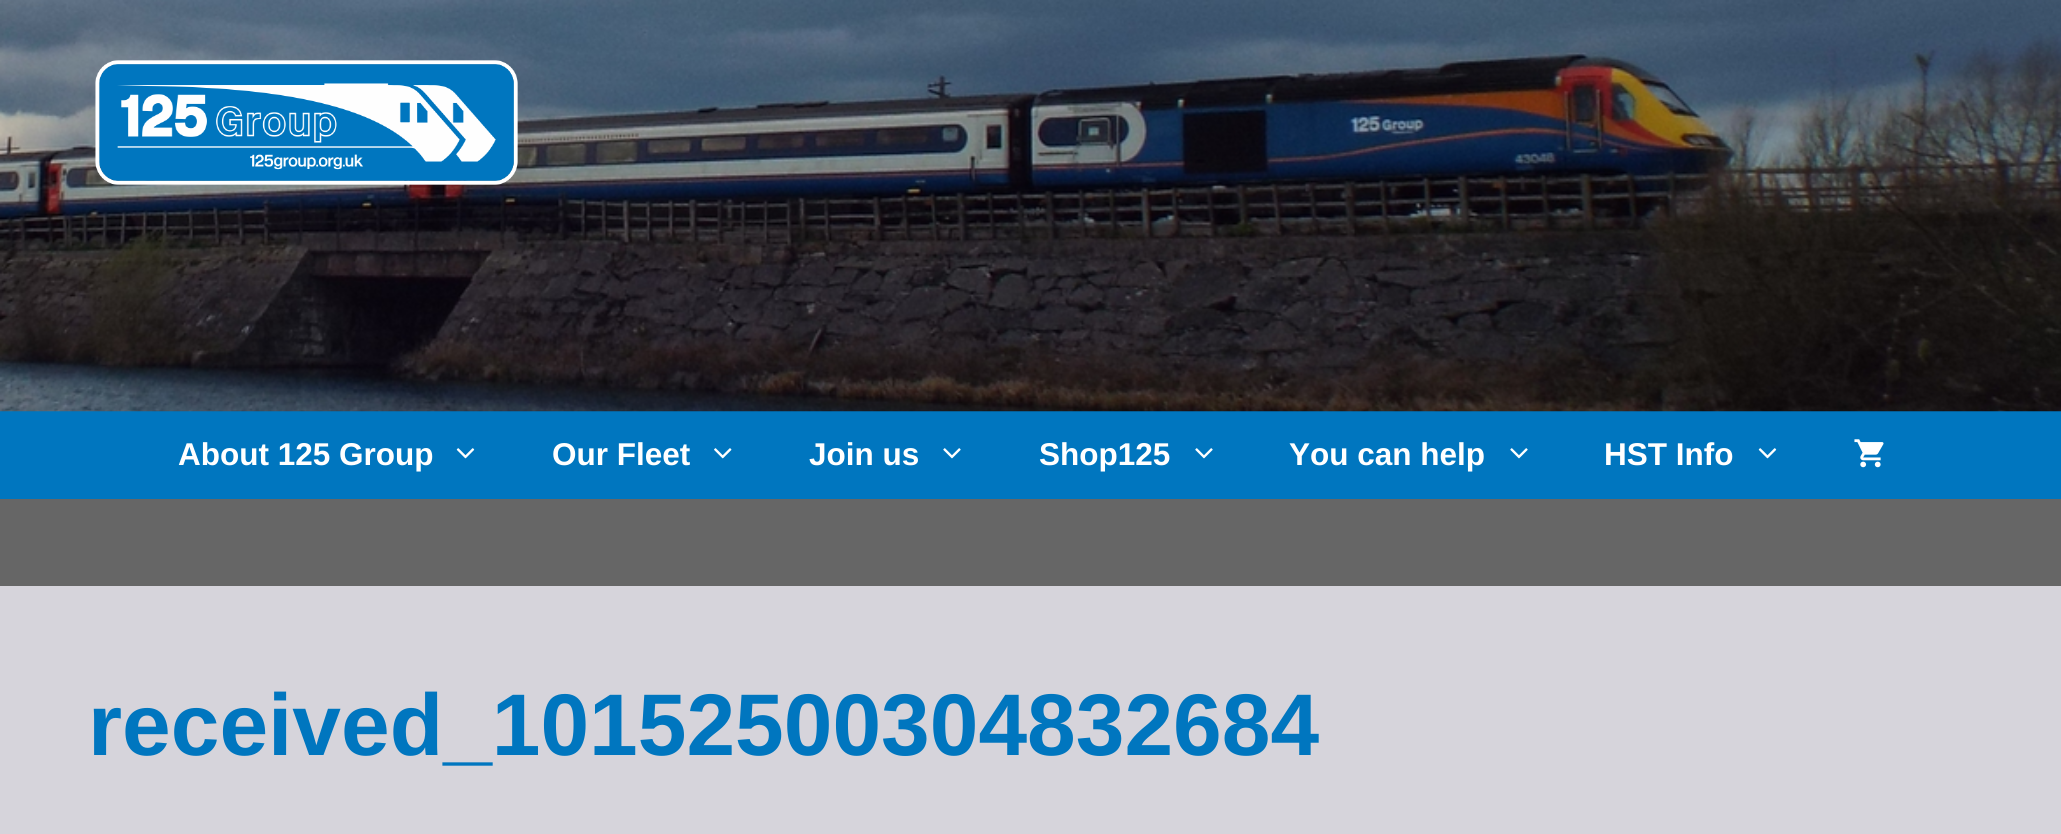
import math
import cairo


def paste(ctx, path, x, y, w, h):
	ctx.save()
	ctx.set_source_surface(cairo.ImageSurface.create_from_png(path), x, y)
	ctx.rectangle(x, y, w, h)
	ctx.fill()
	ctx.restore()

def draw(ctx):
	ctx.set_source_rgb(0.4, 0.4, 0.4)
	ctx.paint()
	ctx.set_source_rgb(0, 0.463, 0.749)
	ctx.rectangle(0, 411, 2061, 88)
	ctx.fill()
	paste(ctx, 'media/1.png', 0, 0, 2061, 412)
	paste(ctx, 'media/2.png', 95, 60, 423, 125)
	ctx.select_font_face('Liberation Sans', cairo.FONT_SLANT_NORMAL, cairo.FONT_WEIGHT_BOLD)
	ctx.set_font_size(31.5)
	ctx.set_source_rgb(1, 1, 1)
	ctx.move_to(178, 465)
	ctx.show_text('About 125 Group')
	paste(ctx, 'media/3.png', 456, 448, 19, 11)
	ctx.move_to(552, 465)
	ctx.show_text('Our Fleet')
	paste(ctx, 'media/4.png', 714, 448, 18, 11)
	ctx.move_to(809, 465)
	ctx.show_text('Join us')
	paste(ctx, 'media/5.png', 943, 448, 18, 11)
	ctx.move_to(1039, 465)
	ctx.show_text('Shop125')
	paste(ctx, 'media/5.png', 1195, 448, 18, 11)
	ctx.move_to(1289, 465)
	ctx.show_text('You can help')
	paste(ctx, 'media/5.png', 1510, 448, 18, 11)
	ctx.move_to(1604, 465)
	ctx.show_text('HST Info')
	paste(ctx, 'media/3.png', 1758, 448, 19, 11)
	paste(ctx, 'media/6.png', 1854, 439, 30, 29)
	ctx.set_source_rgb(0.839, 0.831, 0.859)
	ctx.rectangle(0, 586, 2061, 248)
	ctx.fill()
	ctx.set_font_size(87.5)
	ctx.set_source_rgb(0, 0.463, 0.749)
	ctx.move_to(88, 755)
	ctx.show_text('received_10152500304832684')


surface = cairo.ImageSurface(cairo.FORMAT_RGB24, 2061, 834)
ctx = cairo.Context(surface)
options = cairo.FontOptions()
options.set_hint_metrics(cairo.HINT_METRICS_OFF)
options.set_hint_style(cairo.HINT_STYLE_NONE)
ctx.set_font_options(options)
ctx.set_miter_limit(4)
draw(ctx)
surface.write_to_png('image.png')
